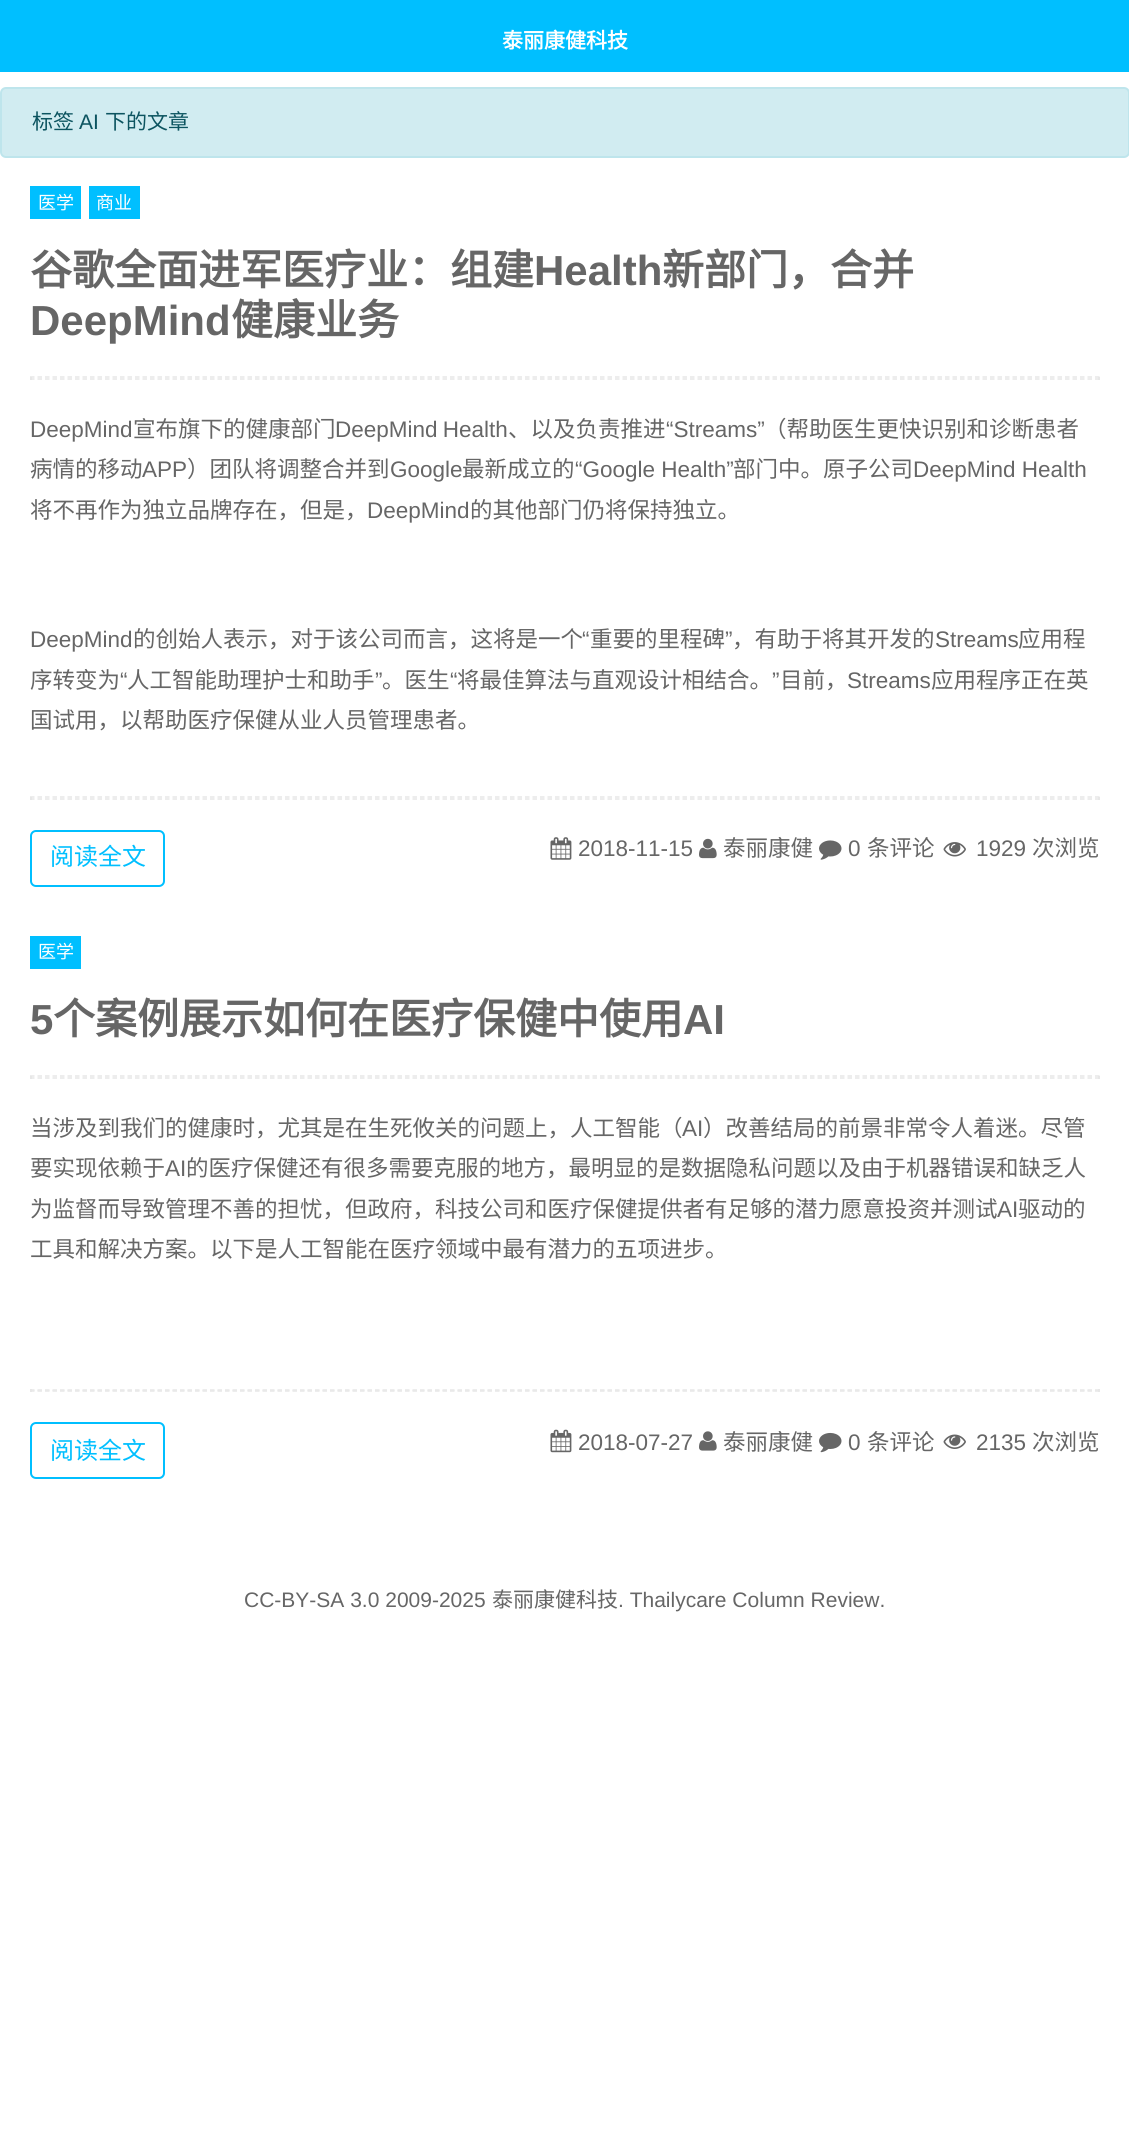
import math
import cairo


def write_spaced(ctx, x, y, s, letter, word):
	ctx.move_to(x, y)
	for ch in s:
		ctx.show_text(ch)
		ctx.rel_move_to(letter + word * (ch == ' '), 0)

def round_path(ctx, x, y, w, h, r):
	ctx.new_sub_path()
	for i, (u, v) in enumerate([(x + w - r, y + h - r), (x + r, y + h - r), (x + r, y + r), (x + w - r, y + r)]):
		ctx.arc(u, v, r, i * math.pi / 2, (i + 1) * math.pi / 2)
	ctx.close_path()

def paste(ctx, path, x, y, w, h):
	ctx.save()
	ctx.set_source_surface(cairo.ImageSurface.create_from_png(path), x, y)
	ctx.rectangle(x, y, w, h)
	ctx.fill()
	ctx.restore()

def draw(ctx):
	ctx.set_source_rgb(1, 1, 1)
	ctx.paint()
	ctx.set_source_rgb(0, 0.749, 1)
	ctx.rectangle(0, 0, 1129, 72)
	ctx.fill()
	ctx.select_font_face('Noto Sans CJK SC', cairo.FONT_SLANT_NORMAL, cairo.FONT_WEIGHT_BOLD)
	ctx.set_font_size(21)
	ctx.set_source_rgb(1, 1, 1)
	ctx.move_to(502, 48)
	ctx.show_text('泰丽康健科技')
	ctx.set_source_rgb(0.82, 0.925, 0.945)
	round_path(ctx, 1, 88, 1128, 69, 5)
	ctx.fill_preserve()
	ctx.set_source_rgb(0.745, 0.898, 0.922)
	ctx.stroke()
	ctx.select_font_face('Noto Sans CJK SC')
	ctx.set_source_rgb(0.047, 0.329, 0.376)
	ctx.move_to(32, 129)
	ctx.show_text('标签')
	ctx.select_font_face('Liberation Sans')
	ctx.move_to(79, 129)
	ctx.show_text('AI')
	ctx.select_font_face('Noto Sans CJK SC')
	ctx.move_to(105, 129)
	ctx.show_text('下的文章')
	ctx.set_source_rgb(0, 0.749, 1)
	ctx.rectangle(30, 186, 51, 33)
	ctx.fill()
	ctx.set_font_size(18)
	ctx.set_source_rgb(1, 1, 1)
	ctx.move_to(38, 209)
	ctx.show_text('医学')
	ctx.set_source_rgb(0, 0.749, 1)
	ctx.rectangle(89, 186, 51, 33)
	ctx.fill()
	ctx.set_source_rgb(1, 1, 1)
	ctx.move_to(96, 209)
	ctx.show_text('商业')
	ctx.select_font_face('Noto Sans CJK SC', cairo.FONT_SLANT_NORMAL, cairo.FONT_WEIGHT_BOLD)
	ctx.set_font_size(42)
	ctx.set_source_rgb(0.4, 0.4, 0.4)
	ctx.move_to(30, 285)
	ctx.show_text('谷歌全面进军医疗业：组建')
	ctx.select_font_face('Liberation Sans', cairo.FONT_SLANT_NORMAL, cairo.FONT_WEIGHT_BOLD)
	ctx.move_to(534, 285)
	ctx.show_text('Health')
	ctx.select_font_face('Noto Sans CJK SC', cairo.FONT_SLANT_NORMAL, cairo.FONT_WEIGHT_BOLD)
	ctx.move_to(662, 285)
	ctx.show_text('新部门，合并')
	ctx.select_font_face('Liberation Sans', cairo.FONT_SLANT_NORMAL, cairo.FONT_WEIGHT_BOLD)
	ctx.move_to(30, 335)
	ctx.show_text('DeepMind')
	ctx.select_font_face('Noto Sans CJK SC', cairo.FONT_SLANT_NORMAL, cairo.FONT_WEIGHT_BOLD)
	ctx.move_to(231, 335)
	ctx.show_text('健康业务')
	ctx.new_path()
	ctx.move_to(30, 377)
	ctx.line_to(1099.5, 377)
	ctx.set_source_rgb(0.906, 0.906, 0.906)
	ctx.set_line_width(1.5)
	ctx.set_dash([4.5, 3])
	ctx.stroke()
	ctx.rectangle(1098, 377, 2, 3)
	ctx.fill()
	ctx.new_path()
	ctx.move_to(30, 379)
	ctx.line_to(1099.5, 379)
	ctx.stroke()
	ctx.rectangle(30, 377, 2, 3)
	ctx.fill()
	ctx.select_font_face('Liberation Sans')
	ctx.set_font_size(22.5)
	ctx.set_source_rgb(0.4, 0.4, 0.4)
	ctx.move_to(30, 437)
	ctx.show_text('DeepMind')
	ctx.select_font_face('Noto Sans CJK SC')
	ctx.move_to(133, 437)
	ctx.show_text('宣布旗下的健康部门')
	ctx.select_font_face('Liberation Sans')
	write_spaced(ctx, 335, 437, 'DeepMind Health', 0, -1)
	ctx.select_font_face('Noto Sans CJK SC')
	ctx.move_to(508, 437)
	ctx.show_text('、以及负责推进')
	ctx.select_font_face('Liberation Sans')
	ctx.move_to(666, 437)
	ctx.show_text('“Streams”')
	ctx.select_font_face('Noto Sans CJK SC')
	ctx.move_to(764, 437)
	ctx.show_text('（帮助医生更快识别和诊断患者')
	ctx.move_to(30, 477)
	ctx.show_text('病情的移动')
	ctx.select_font_face('Liberation Sans')
	ctx.move_to(142, 477)
	ctx.show_text('APP')
	ctx.select_font_face('Noto Sans CJK SC')
	ctx.move_to(187, 477)
	ctx.show_text('）团队将调整合并到')
	ctx.select_font_face('Liberation Sans')
	ctx.move_to(390, 477)
	ctx.show_text('Google')
	ctx.select_font_face('Noto Sans CJK SC')
	ctx.move_to(462, 477)
	ctx.show_text('最新成立的')
	ctx.select_font_face('Liberation Sans')
	ctx.move_to(575, 477)
	ctx.show_text('“Google Health”')
	ctx.select_font_face('Noto Sans CJK SC')
	ctx.move_to(733, 477)
	ctx.show_text('部门中。原子公司')
	ctx.select_font_face('Liberation Sans')
	ctx.move_to(913, 477)
	ctx.show_text('DeepMind Health')
	ctx.select_font_face('Noto Sans CJK SC')
	ctx.move_to(30, 518)
	ctx.show_text('将不再作为独立品牌存在，但是，')
	ctx.select_font_face('Liberation Sans')
	ctx.move_to(367, 518)
	ctx.show_text('DeepMind')
	ctx.select_font_face('Noto Sans CJK SC')
	ctx.move_to(470, 518)
	ctx.show_text('的其他部门仍将保持独立。')
	ctx.select_font_face('Liberation Sans')
	ctx.move_to(30, 647)
	ctx.show_text('DeepMind')
	ctx.select_font_face('Noto Sans CJK SC')
	ctx.move_to(133, 647)
	ctx.show_text('的创始人表示，对于该公司而言，这将是一个')
	ctx.select_font_face('Liberation Sans')
	ctx.move_to(582, 647)
	ctx.show_text('“')
	ctx.select_font_face('Noto Sans CJK SC')
	ctx.move_to(590, 647)
	ctx.show_text('重要的里程碑')
	ctx.select_font_face('Liberation Sans')
	ctx.move_to(725, 647)
	ctx.show_text('”')
	ctx.select_font_face('Noto Sans CJK SC')
	ctx.move_to(732, 647)
	ctx.show_text('，有助于将其开发的')
	ctx.select_font_face('Liberation Sans')
	ctx.move_to(935, 647)
	ctx.show_text('Streams')
	ctx.select_font_face('Noto Sans CJK SC')
	ctx.move_to(1018, 647)
	ctx.show_text('应用程')
	ctx.move_to(30, 688)
	ctx.show_text('序转变为')
	ctx.select_font_face('Liberation Sans')
	ctx.move_to(120, 688)
	ctx.show_text('“')
	ctx.select_font_face('Noto Sans CJK SC')
	ctx.move_to(127, 688)
	ctx.show_text('人工智能助理护士和助手')
	ctx.select_font_face('Liberation Sans')
	ctx.move_to(375, 688)
	ctx.show_text('”')
	ctx.select_font_face('Noto Sans CJK SC')
	ctx.move_to(382, 688)
	ctx.show_text('。医生')
	ctx.select_font_face('Liberation Sans')
	ctx.move_to(450, 688)
	ctx.show_text('“')
	ctx.select_font_face('Noto Sans CJK SC')
	ctx.move_to(457, 688)
	ctx.show_text('将最佳算法与直观设计相结合。')
	ctx.select_font_face('Liberation Sans')
	ctx.move_to(772, 688)
	ctx.show_text('”')
	ctx.select_font_face('Noto Sans CJK SC')
	ctx.move_to(780, 688)
	ctx.show_text('目前，')
	ctx.select_font_face('Liberation Sans')
	ctx.move_to(847, 688)
	ctx.show_text('Streams')
	ctx.select_font_face('Noto Sans CJK SC')
	ctx.move_to(931, 688)
	ctx.show_text('应用程序正在英')
	ctx.move_to(30, 728)
	ctx.show_text('国试用，以帮助医疗保健从业人员管理患者。')
	ctx.new_path()
	ctx.move_to(30, 797)
	ctx.line_to(1099.5, 797)
	ctx.set_source_rgb(0.906, 0.906, 0.906)
	ctx.stroke()
	ctx.rectangle(1098, 797, 2, 3)
	ctx.fill()
	ctx.new_path()
	ctx.move_to(30, 799)
	ctx.line_to(1099.5, 799)
	ctx.stroke()
	ctx.rectangle(30, 797, 2, 3)
	ctx.fill()
	round_path(ctx, 31, 831, 133, 55, 5)
	ctx.set_source_rgb(0, 0.749, 1)
	ctx.set_line_width(2)
	ctx.set_dash([])
	ctx.stroke()
	ctx.set_font_size(24)
	ctx.move_to(50, 865)
	ctx.show_text('阅读全文')
	paste(ctx, 'media/1.png', 550, 837, 22, 23)
	ctx.select_font_face('Liberation Sans')
	ctx.set_font_size(22.5)
	ctx.set_source_rgb(0.4, 0.4, 0.4)
	ctx.move_to(578, 856)
	ctx.show_text('2018-11-15')
	paste(ctx, 'media/2.png', 699, 838, 18, 21)
	ctx.select_font_face('Noto Sans CJK SC')
	ctx.move_to(723, 856)
	ctx.show_text('泰丽康健')
	paste(ctx, 'media/3.png', 819, 840, 23, 20)
	ctx.select_font_face('Liberation Sans')
	ctx.move_to(848, 856)
	ctx.show_text('0')
	ctx.select_font_face('Noto Sans CJK SC')
	ctx.move_to(867, 856)
	ctx.show_text('条评论')
	paste(ctx, 'media/4.png', 943, 842, 23, 15)
	ctx.select_font_face('Liberation Sans')
	ctx.move_to(976, 856)
	ctx.show_text('1929')
	ctx.select_font_face('Noto Sans CJK SC')
	ctx.move_to(1032, 856)
	ctx.show_text('次浏览')
	ctx.set_source_rgb(0, 0.749, 1)
	ctx.rectangle(30, 936, 51, 33)
	ctx.fill()
	ctx.set_font_size(18)
	ctx.set_source_rgb(1, 1, 1)
	ctx.move_to(38, 958)
	ctx.show_text('医学')
	ctx.select_font_face('Liberation Sans', cairo.FONT_SLANT_NORMAL, cairo.FONT_WEIGHT_BOLD)
	ctx.set_font_size(42)
	ctx.set_source_rgb(0.4, 0.4, 0.4)
	ctx.move_to(30, 1034)
	ctx.show_text('5')
	ctx.select_font_face('Noto Sans CJK SC', cairo.FONT_SLANT_NORMAL, cairo.FONT_WEIGHT_BOLD)
	ctx.move_to(53, 1034)
	ctx.show_text('个案例展示如何在医疗保健中使用')
	ctx.select_font_face('Liberation Sans', cairo.FONT_SLANT_NORMAL, cairo.FONT_WEIGHT_BOLD)
	ctx.move_to(683, 1034)
	ctx.show_text('AI')
	ctx.new_path()
	ctx.move_to(30, 1076)
	ctx.line_to(1099.5, 1076)
	ctx.set_source_rgb(0.906, 0.906, 0.906)
	ctx.set_line_width(1.5)
	ctx.set_dash([4.5, 3])
	ctx.stroke()
	ctx.rectangle(1098, 1076, 2, 3)
	ctx.fill()
	ctx.new_path()
	ctx.move_to(30, 1078)
	ctx.line_to(1099.5, 1078)
	ctx.stroke()
	ctx.rectangle(30, 1076, 2, 3)
	ctx.fill()
	ctx.select_font_face('Noto Sans CJK SC')
	ctx.set_font_size(22.5)
	ctx.set_source_rgb(0.4, 0.4, 0.4)
	ctx.move_to(30, 1136)
	ctx.show_text('当涉及到我们的健康时，尤其是在生死攸关的问题上，人工智能（')
	ctx.select_font_face('Liberation Sans')
	ctx.move_to(682, 1136)
	ctx.show_text('AI')
	ctx.select_font_face('Noto Sans CJK SC')
	ctx.move_to(703, 1136)
	ctx.show_text('）改善结局的前景非常令人着迷。尽管')
	ctx.move_to(30, 1176)
	ctx.show_text('要实现依赖于')
	ctx.select_font_face('Liberation Sans')
	ctx.move_to(165, 1176)
	ctx.show_text('AI')
	ctx.select_font_face('Noto Sans CJK SC')
	ctx.move_to(186, 1176)
	ctx.show_text('的医疗保健还有很多需要克服的地方，最明显的是数据隐私问题以及由于机器错误和缺乏人')
	ctx.move_to(30, 1217)
	ctx.show_text('为监督而导致管理不善的担忧，但政府，科技公司和医疗保健提供者有足够的潜力愿意投资并测试')
	ctx.select_font_face('Liberation Sans')
	ctx.move_to(997, 1217)
	ctx.show_text('AI')
	ctx.select_font_face('Noto Sans CJK SC')
	ctx.move_to(1018, 1217)
	ctx.show_text('驱动的')
	ctx.move_to(30, 1257)
	ctx.show_text('工具和解决方案。以下是人工智能在医疗领域中最有潜力的五项进步。')
	ctx.new_path()
	ctx.move_to(30, 1390)
	ctx.line_to(1099.5, 1390)
	ctx.set_source_rgb(0.906, 0.906, 0.906)
	ctx.stroke()
	ctx.rectangle(1098, 1389, 2, 3)
	ctx.fill()
	ctx.new_path()
	ctx.move_to(30, 1391)
	ctx.line_to(1099.5, 1391)
	ctx.stroke()
	ctx.rectangle(30, 1389, 2, 3)
	ctx.fill()
	round_path(ctx, 31, 1423, 133, 55, 5)
	ctx.set_source_rgb(0, 0.749, 1)
	ctx.set_line_width(2)
	ctx.set_dash([])
	ctx.stroke()
	ctx.set_font_size(24)
	ctx.move_to(50, 1459)
	ctx.show_text('阅读全文')
	paste(ctx, 'media/5.png', 550, 1429, 22, 24)
	ctx.select_font_face('Liberation Sans')
	ctx.set_font_size(22.5)
	ctx.set_source_rgb(0.4, 0.4, 0.4)
	ctx.move_to(578, 1450)
	ctx.show_text('2018-07-27')
	paste(ctx, 'media/6.png', 699, 1431, 18, 20)
	ctx.select_font_face('Noto Sans CJK SC')
	ctx.move_to(723, 1450)
	ctx.show_text('泰丽康健')
	paste(ctx, 'media/7.png', 819, 1432, 23, 21)
	ctx.select_font_face('Liberation Sans')
	ctx.move_to(848, 1450)
	ctx.show_text('0')
	ctx.select_font_face('Noto Sans CJK SC')
	ctx.move_to(867, 1450)
	ctx.show_text('条评论')
	paste(ctx, 'media/8.png', 943, 1434, 23, 15)
	ctx.select_font_face('Liberation Sans')
	ctx.move_to(976, 1450)
	ctx.show_text('2135')
	ctx.select_font_face('Noto Sans CJK SC')
	ctx.move_to(1032, 1450)
	ctx.show_text('次浏览')
	ctx.select_font_face('Liberation Sans')
	ctx.set_font_size(21)
	ctx.move_to(244, 1607)
	ctx.show_text('CC-BY-SA 3.0 2009-2025')
	ctx.select_font_face('Noto Sans CJK SC')
	ctx.move_to(492, 1607)
	ctx.show_text('泰丽康健科技')
	ctx.select_font_face('Liberation Sans')
	ctx.move_to(618, 1607)
	ctx.show_text('. Thailycare Column Review.')


surface = cairo.ImageSurface(cairo.FORMAT_RGB24, 1129, 2135)
ctx = cairo.Context(surface)
options = cairo.FontOptions()
options.set_hint_metrics(cairo.HINT_METRICS_OFF)
options.set_hint_style(cairo.HINT_STYLE_NONE)
ctx.set_font_options(options)
ctx.set_miter_limit(4)
draw(ctx)
surface.write_to_png('image.png')
